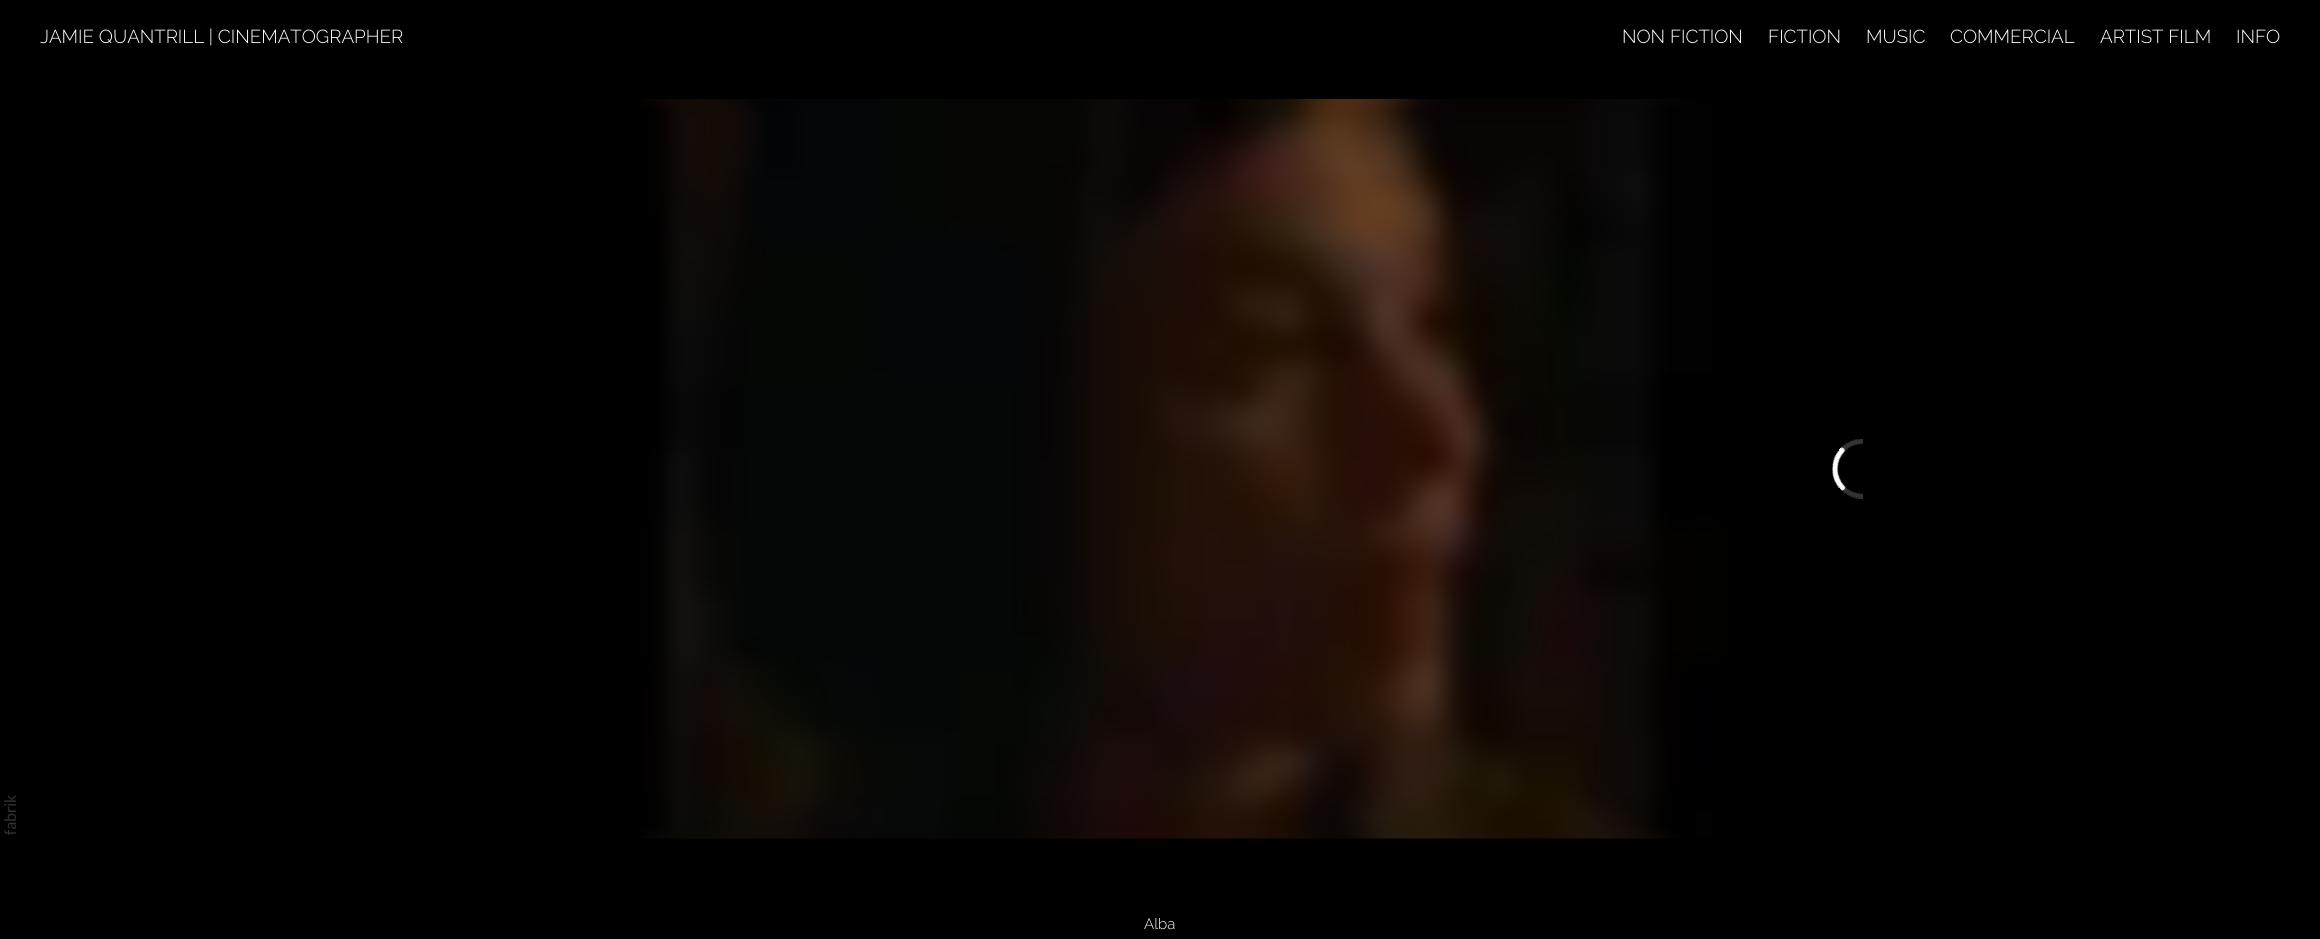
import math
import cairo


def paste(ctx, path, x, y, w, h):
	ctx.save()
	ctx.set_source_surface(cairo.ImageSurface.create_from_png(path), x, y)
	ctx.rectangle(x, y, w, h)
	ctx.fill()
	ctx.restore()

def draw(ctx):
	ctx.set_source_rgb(0, 0, 0)
	ctx.paint()
	ctx.select_font_face('Raleway Light')
	ctx.set_font_size(18.75)
	ctx.set_source_rgb(1, 1, 1)
	for x, y, s in [
		(40, 43, 'JAMIE QUANTRILL | CINEMATOGRAPHER'),
		(1622, 43, 'NON FICTION'),
		(1768, 43, 'FICTION'),
		(1866, 43, 'MUSIC'),
		(1950, 43, 'COMMERCIAL'),
		(2100, 43, 'ARTIST FILM'),
		(2236, 43, 'INFO'),
	]:
		ctx.move_to(x, y)
		ctx.show_text(s)
	paste(ctx, 'media/1.png', 4, 795, 12, 40)
	paste(ctx, 'media/2.png', 640, 99, 1223, 740)
	ctx.set_font_size(15)
	ctx.move_to(1144, 929)
	ctx.show_text('Alba')


surface = cairo.ImageSurface(cairo.FORMAT_RGB24, 2320, 939)
ctx = cairo.Context(surface)
options = cairo.FontOptions()
options.set_hint_metrics(cairo.HINT_METRICS_OFF)
options.set_hint_style(cairo.HINT_STYLE_NONE)
ctx.set_font_options(options)
ctx.set_miter_limit(4)
draw(ctx)
surface.write_to_png('image.png')
